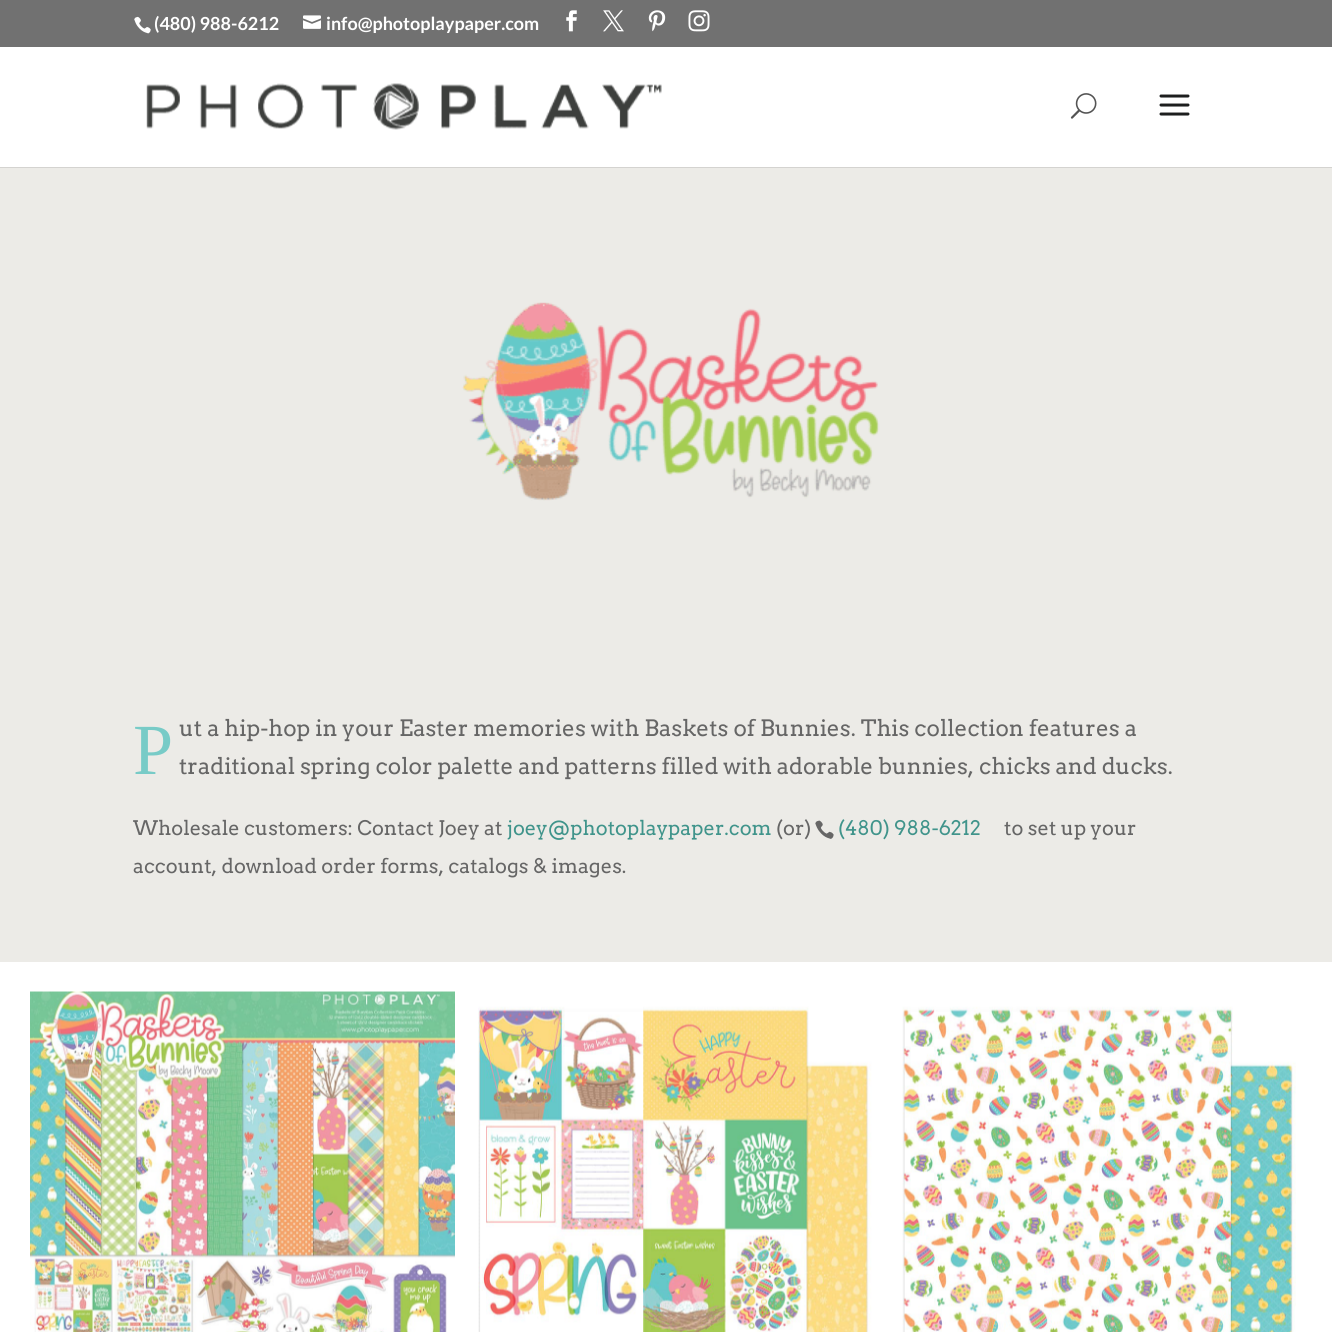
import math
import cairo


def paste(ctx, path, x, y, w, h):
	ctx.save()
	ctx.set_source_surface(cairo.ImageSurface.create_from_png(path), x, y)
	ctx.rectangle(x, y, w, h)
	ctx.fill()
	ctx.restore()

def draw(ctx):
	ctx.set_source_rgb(1, 1, 1)
	ctx.paint()
	ctx.set_source_rgb(0.443, 0.443, 0.443)
	ctx.rectangle(0, 0, 1332, 47)
	ctx.fill()
	paste(ctx, 'media/1.png', 134, 16, 17, 18)
	ctx.select_font_face('Lato', cairo.FONT_SLANT_NORMAL, cairo.FONT_WEIGHT_BOLD)
	ctx.set_font_size(18)
	ctx.set_source_rgb(1, 1, 1)
	ctx.move_to(154, 30)
	ctx.show_text('(480) 988-6212')
	paste(ctx, 'media/2.png', 303, 15, 18, 14)
	ctx.move_to(326, 30)
	ctx.show_text('info@photoplaypaper.com')
	paste(ctx, 'media/3.png', 566, 10, 11, 22)
	paste(ctx, 'media/4.png', 603, 10, 21, 22)
	paste(ctx, 'media/5.png', 648, 10, 18, 22)
	paste(ctx, 'media/6.png', 688, 10, 22, 22)
	ctx.set_source_rgb(0.831, 0.827, 0.816)
	ctx.rectangle(0, 167, 1332, 1)
	ctx.fill()
	paste(ctx, 'media/7.png', 146, 83, 516, 47)
	paste(ctx, 'media/8.png', 1070, 93, 27, 26)
	paste(ctx, 'media/9.png', 1159, 94, 31, 22)
	ctx.set_source_rgb(0.922, 0.918, 0.906)
	ctx.rectangle(0, 168, 1332, 794)
	ctx.fill()
	paste(ctx, 'media/10.png', 462, 302, 418, 199)
	ctx.select_font_face('Liberation Serif')
	ctx.set_font_size(72)
	ctx.set_source_rgb(0.471, 0.796, 0.78)
	ctx.move_to(133, 774)
	ctx.show_text('P')
	ctx.select_font_face('Arvo')
	ctx.set_font_size(22.5)
	ctx.set_source_rgb(0.4, 0.4, 0.4)
	ctx.move_to(179, 736)
	ctx.show_text('ut a hip-hop in your Easter memories with Baskets of Bunnies. This collection features a')
	ctx.move_to(179, 774)
	ctx.show_text('traditional spring color palette and patterns filled with adorable bunnies, chicks and ducks.')
	ctx.set_font_size(20)
	ctx.move_to(133, 835)
	ctx.show_text('Wholesale customers: Contact Joey at')
	ctx.set_source_rgb(0.251, 0.58, 0.545)
	ctx.move_to(507, 835)
	ctx.show_text('joey@photoplaypaper.com')
	ctx.set_source_rgb(0.4, 0.4, 0.4)
	ctx.move_to(776, 835)
	ctx.show_text('(or)')
	paste(ctx, 'media/11.png', 815, 820, 19, 19)
	ctx.set_source_rgb(0.251, 0.58, 0.545)
	ctx.move_to(838, 835)
	ctx.show_text('(480) 988-6212')
	ctx.set_source_rgb(0.4, 0.4, 0.4)
	ctx.move_to(1004, 835)
	ctx.show_text('to set up your')
	ctx.move_to(133, 873)
	ctx.show_text('account, download order forms, catalogs & images.')
	paste(ctx, 'media/12.png', 30, 991, 425, 341)
	paste(ctx, 'media/13.png', 455, 992, 424, 340)
	paste(ctx, 'media/14.png', 879, 992, 423, 340)


surface = cairo.ImageSurface(cairo.FORMAT_RGB24, 1332, 1332)
ctx = cairo.Context(surface)
options = cairo.FontOptions()
options.set_hint_metrics(cairo.HINT_METRICS_OFF)
options.set_hint_style(cairo.HINT_STYLE_NONE)
ctx.set_font_options(options)
ctx.set_miter_limit(4)
draw(ctx)
surface.write_to_png('image.png')
